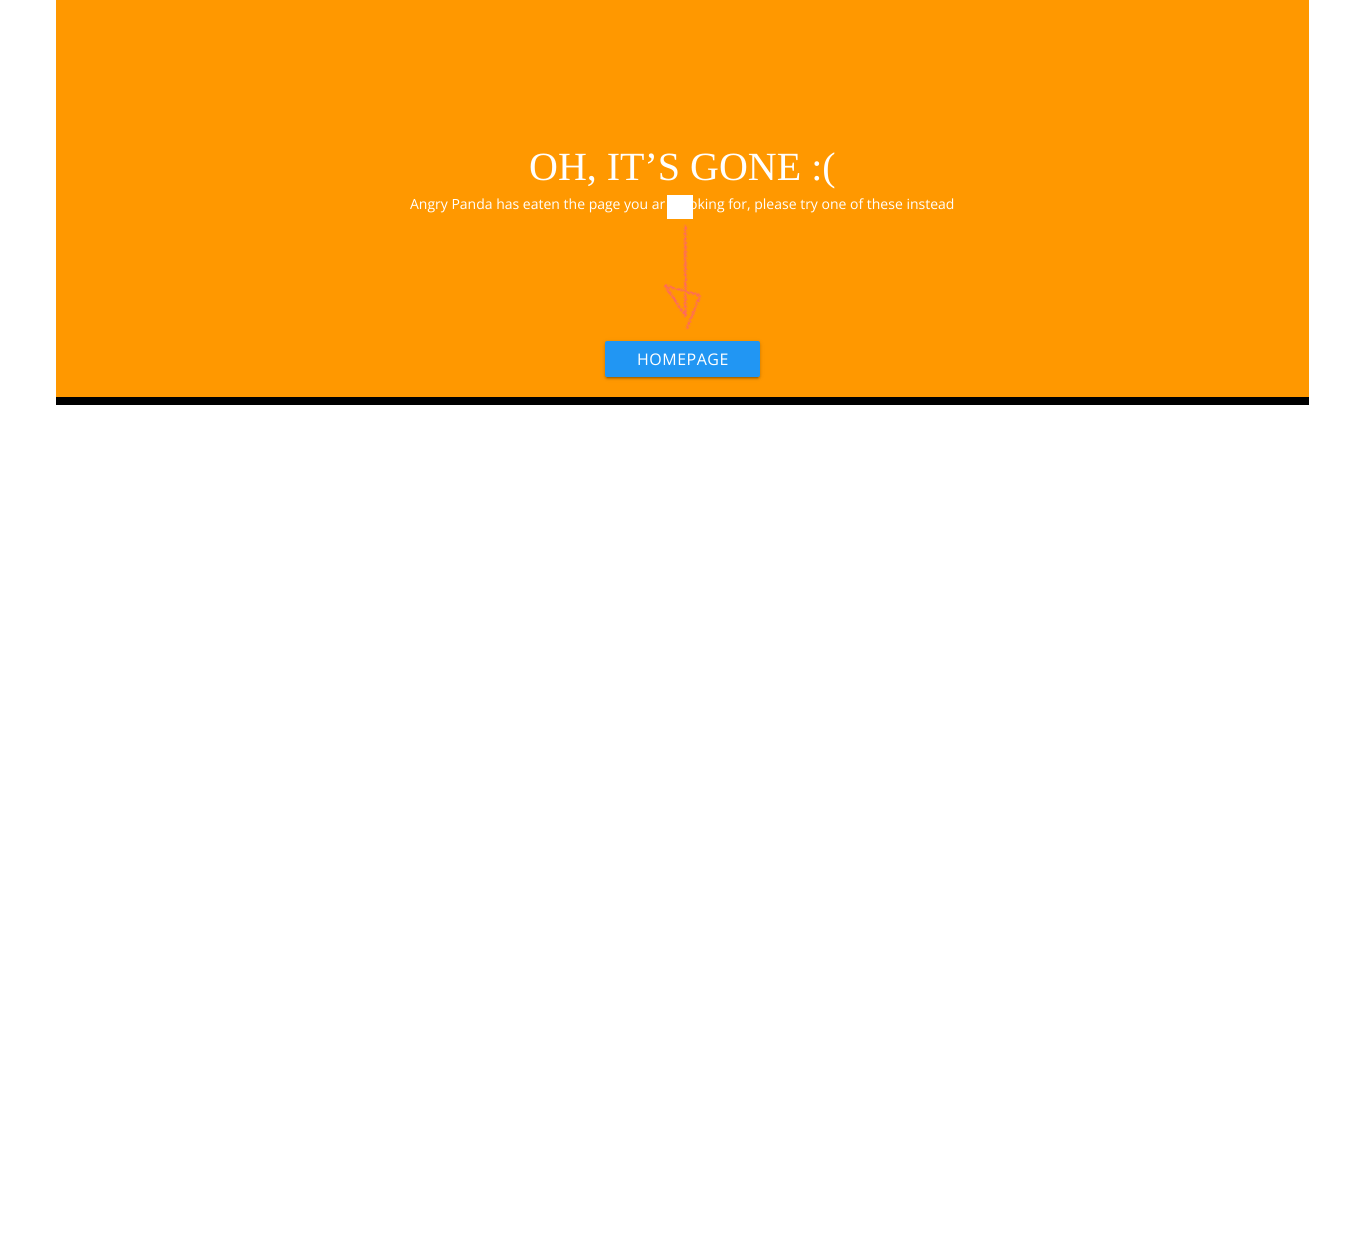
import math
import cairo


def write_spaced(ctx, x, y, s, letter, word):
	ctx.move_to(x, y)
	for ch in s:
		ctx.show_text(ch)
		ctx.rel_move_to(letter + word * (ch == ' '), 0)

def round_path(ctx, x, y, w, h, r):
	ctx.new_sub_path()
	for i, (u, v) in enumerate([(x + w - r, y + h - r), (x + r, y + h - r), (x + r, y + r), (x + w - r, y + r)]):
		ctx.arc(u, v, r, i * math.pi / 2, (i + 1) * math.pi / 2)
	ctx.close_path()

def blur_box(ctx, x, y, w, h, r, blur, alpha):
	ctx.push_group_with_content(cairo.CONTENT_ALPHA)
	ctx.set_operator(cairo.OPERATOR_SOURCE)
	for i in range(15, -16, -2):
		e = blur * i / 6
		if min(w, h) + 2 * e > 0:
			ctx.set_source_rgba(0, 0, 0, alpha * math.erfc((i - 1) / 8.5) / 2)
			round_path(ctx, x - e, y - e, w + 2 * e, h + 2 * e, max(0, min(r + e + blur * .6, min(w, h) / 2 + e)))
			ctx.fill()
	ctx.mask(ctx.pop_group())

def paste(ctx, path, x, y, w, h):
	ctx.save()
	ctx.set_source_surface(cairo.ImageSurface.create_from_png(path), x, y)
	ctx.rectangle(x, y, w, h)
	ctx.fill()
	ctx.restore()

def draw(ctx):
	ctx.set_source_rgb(1, 1, 1)
	ctx.paint()
	ctx.set_source_rgb(1, 0.596, 0)
	ctx.rectangle(56, 0, 1253, 397)
	ctx.fill()
	ctx.set_source_rgb(0, 0, 0)
	ctx.rectangle(56, 397, 1253, 8)
	ctx.fill()
	ctx.select_font_face('Liberation Serif')
	ctx.set_font_size(40)
	ctx.set_source_rgb(1, 1, 1)
	ctx.move_to(529, 180)
	ctx.show_text('OH, IT’S GONE :(')
	ctx.rectangle(667, 195, 26, 24)
	ctx.fill()
	ctx.select_font_face('Open Sans')
	ctx.set_font_size(14)
	ctx.move_to(410, 209)
	ctx.show_text('Angry Panda has eaten the page you ar')
	ctx.move_to(689, 209)
	ctx.show_text('oking for, please try one of these instead')
	paste(ctx, 'media/1.png', 663, 224, 39, 106)
	ctx.set_source_rgb(0, 0, 0)
	blur_box(ctx, 607, 346, 151, 32, 0, 0.5, 0.2)
	blur_box(ctx, 605, 342, 155, 36, 2, 2.5, 0.12)
	blur_box(ctx, 605, 343, 155, 36, 2, 1, 0.14)
	ctx.set_source_rgb(0.129, 0.588, 0.953)
	round_path(ctx, 605, 341, 155, 36, 2)
	ctx.fill()
	ctx.set_font_size(16)
	ctx.set_source_rgb(1, 1, 1)
	write_spaced(ctx, 637, 365, 'HOMEPAGE', 0.5, 0)


surface = cairo.ImageSurface(cairo.FORMAT_RGB24, 1365, 1248)
ctx = cairo.Context(surface)
options = cairo.FontOptions()
options.set_hint_metrics(cairo.HINT_METRICS_OFF)
options.set_hint_style(cairo.HINT_STYLE_NONE)
ctx.set_font_options(options)
ctx.set_miter_limit(4)
draw(ctx)
surface.write_to_png('image.png')
